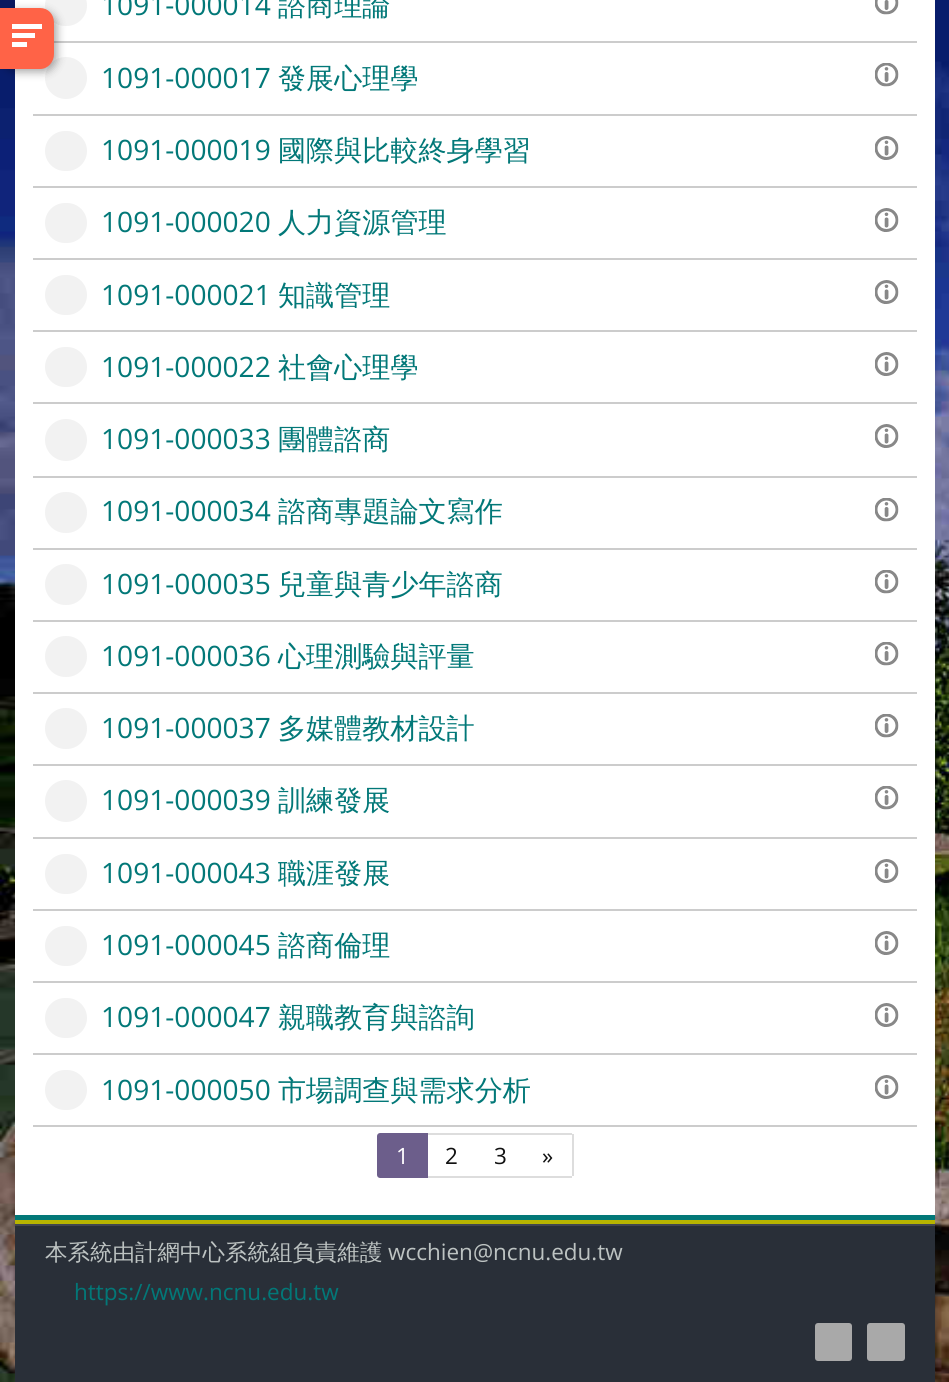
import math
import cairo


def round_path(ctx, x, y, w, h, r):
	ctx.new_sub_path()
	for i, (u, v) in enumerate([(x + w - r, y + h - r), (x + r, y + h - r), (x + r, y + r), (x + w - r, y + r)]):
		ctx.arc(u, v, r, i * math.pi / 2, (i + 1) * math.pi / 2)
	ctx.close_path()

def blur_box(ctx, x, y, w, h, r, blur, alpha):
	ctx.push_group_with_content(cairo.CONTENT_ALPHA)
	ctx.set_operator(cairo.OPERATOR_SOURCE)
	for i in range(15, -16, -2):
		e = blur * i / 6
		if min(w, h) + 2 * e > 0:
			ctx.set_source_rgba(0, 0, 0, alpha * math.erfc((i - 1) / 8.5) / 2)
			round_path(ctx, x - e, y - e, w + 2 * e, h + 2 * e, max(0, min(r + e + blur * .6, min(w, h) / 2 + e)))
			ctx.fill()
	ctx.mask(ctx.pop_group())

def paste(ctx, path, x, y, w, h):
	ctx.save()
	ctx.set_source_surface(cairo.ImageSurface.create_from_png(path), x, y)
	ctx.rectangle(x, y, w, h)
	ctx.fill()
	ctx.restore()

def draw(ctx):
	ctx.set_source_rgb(1, 1, 1)
	ctx.paint()
	paste(ctx, 'media/1.png', 0, 0, 949, 1382)
	ctx.set_source_rgb(1, 1, 1)
	ctx.rectangle(15, 0, 920, 1215)
	ctx.fill()
	ctx.set_source_rgb(0.8, 0.8, 0.8)
	ctx.rectangle(54, 41, 863, 2)
	ctx.fill()
	ctx.set_source_rgb(0.949, 0.949, 0.949)
	round_path(ctx, 45, -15, 42, 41, 20.5)
	ctx.fill()
	ctx.arc(66, 78, 21, 0, 2 * math.pi)
	ctx.fill()
	ctx.set_source_rgb(0, 0, 0)
	blur_box(ctx, 3, 11, 54, 61, 14, 4.5, 0.35)
	ctx.set_source_rgb(1, 0.388, 0.278)
	ctx.new_path()
	ctx.move_to(0, 8)
	ctx.line_to(40, 8)
	ctx.curve_to(48, 8, 54, 14, 54, 23)
	ctx.line_to(54, 54)
	ctx.curve_to(54, 62, 48, 69, 40, 69)
	ctx.line_to(0, 69)
	ctx.close_path()
	ctx.fill()
	ctx.set_source_rgb(1, 1, 1)
	ctx.rectangle(12, 24, 30, 5)
	ctx.rectangle(12, 33, 23, 5)
	ctx.rectangle(12, 42, 15, 5)
	ctx.fill()
	ctx.select_font_face('Open Sans')
	ctx.set_font_size(28.1)
	ctx.set_source_rgb(0.008, 0.471, 0.471)
	ctx.move_to(101, 15)
	ctx.show_text('1091-000014')
	ctx.select_font_face('WenQuanYi Zen Hei Medium')
	ctx.move_to(278, 15)
	ctx.show_text('諮商理論')
	paste(ctx, 'media/2.png', 875, 0, 24, 15)
	ctx.set_source_rgb(0.8, 0.8, 0.8)
	ctx.rectangle(33, 114, 884, 2)
	ctx.fill()
	ctx.select_font_face('Open Sans')
	ctx.set_source_rgb(0.008, 0.471, 0.471)
	ctx.move_to(101, 88)
	ctx.show_text('1091-000017')
	ctx.select_font_face('WenQuanYi Zen Hei Medium')
	ctx.move_to(278, 88)
	ctx.show_text('發展心理學')
	paste(ctx, 'media/3.png', 875, 63, 24, 24)
	ctx.set_source_rgb(0.8, 0.8, 0.8)
	ctx.rectangle(33, 186, 884, 2)
	ctx.fill()
	ctx.set_source_rgb(0.949, 0.949, 0.949)
	round_path(ctx, 45, 131, 42, 40, 20)
	ctx.fill()
	ctx.select_font_face('Open Sans')
	ctx.set_source_rgb(0.008, 0.471, 0.471)
	ctx.move_to(101, 160)
	ctx.show_text('1091-000019')
	ctx.select_font_face('WenQuanYi Zen Hei Medium')
	ctx.move_to(278, 160)
	ctx.show_text('國際與比較終身學習')
	paste(ctx, 'media/4.png', 875, 136, 24, 24)
	ctx.set_source_rgb(0.8, 0.8, 0.8)
	ctx.rectangle(33, 258, 884, 2)
	ctx.fill()
	ctx.set_source_rgb(0.949, 0.949, 0.949)
	round_path(ctx, 45, 203, 42, 40, 20)
	ctx.fill()
	ctx.select_font_face('Open Sans')
	ctx.set_source_rgb(0.008, 0.471, 0.471)
	ctx.move_to(101, 232)
	ctx.show_text('1091-000020')
	ctx.select_font_face('WenQuanYi Zen Hei Medium')
	ctx.move_to(278, 232)
	ctx.show_text('人力資源管理')
	paste(ctx, 'media/4.png', 875, 208, 24, 24)
	ctx.set_source_rgb(0.8, 0.8, 0.8)
	ctx.rectangle(33, 330, 884, 2)
	ctx.fill()
	ctx.set_source_rgb(0.949, 0.949, 0.949)
	round_path(ctx, 45, 275, 42, 40, 20)
	ctx.fill()
	ctx.select_font_face('Open Sans')
	ctx.set_source_rgb(0.008, 0.471, 0.471)
	ctx.move_to(101, 305)
	ctx.show_text('1091-000021')
	ctx.select_font_face('WenQuanYi Zen Hei Medium')
	ctx.move_to(278, 305)
	ctx.show_text('知識管理')
	paste(ctx, 'media/4.png', 875, 280, 24, 24)
	ctx.set_source_rgb(0.8, 0.8, 0.8)
	ctx.rectangle(33, 402, 884, 2)
	ctx.fill()
	ctx.set_source_rgb(0.949, 0.949, 0.949)
	round_path(ctx, 45, 347, 42, 40, 20)
	ctx.fill()
	ctx.select_font_face('Open Sans')
	ctx.set_source_rgb(0.008, 0.471, 0.471)
	ctx.move_to(101, 377)
	ctx.show_text('1091-000022')
	ctx.select_font_face('WenQuanYi Zen Hei Medium')
	ctx.move_to(278, 377)
	ctx.show_text('社會心理學')
	paste(ctx, 'media/4.png', 875, 352, 24, 24)
	ctx.set_source_rgb(0.8, 0.8, 0.8)
	ctx.rectangle(33, 476, 884, 2)
	ctx.fill()
	ctx.set_source_rgb(0.949, 0.949, 0.949)
	ctx.arc(66, 440, 21, 0, 2 * math.pi)
	ctx.fill()
	ctx.select_font_face('Open Sans')
	ctx.set_source_rgb(0.008, 0.471, 0.471)
	ctx.move_to(101, 449)
	ctx.show_text('1091-000033')
	ctx.select_font_face('WenQuanYi Zen Hei Medium')
	ctx.move_to(278, 449)
	ctx.show_text('團體諮商')
	paste(ctx, 'media/4.png', 875, 424, 24, 24)
	ctx.set_source_rgb(0.8, 0.8, 0.8)
	ctx.rectangle(33, 548, 884, 2)
	ctx.fill()
	ctx.set_source_rgb(0.949, 0.949, 0.949)
	round_path(ctx, 45, 492, 42, 41, 20.5)
	ctx.fill()
	ctx.select_font_face('Open Sans')
	ctx.set_source_rgb(0.008, 0.471, 0.471)
	ctx.move_to(101, 521)
	ctx.show_text('1091-000034')
	ctx.select_font_face('WenQuanYi Zen Hei Medium')
	ctx.move_to(278, 521)
	ctx.show_text('諮商專題論文寫作')
	paste(ctx, 'media/5.png', 875, 498, 24, 24)
	ctx.set_source_rgb(0.8, 0.8, 0.8)
	ctx.rectangle(33, 620, 884, 2)
	ctx.fill()
	ctx.set_source_rgb(0.949, 0.949, 0.949)
	round_path(ctx, 45, 564, 42, 41, 20.5)
	ctx.fill()
	ctx.select_font_face('Open Sans')
	ctx.set_source_rgb(0.008, 0.471, 0.471)
	ctx.move_to(101, 594)
	ctx.show_text('1091-000035')
	ctx.select_font_face('WenQuanYi Zen Hei Medium')
	ctx.move_to(278, 594)
	ctx.show_text('兒童與青少年諮商')
	paste(ctx, 'media/6.png', 875, 570, 24, 24)
	ctx.set_source_rgb(0.8, 0.8, 0.8)
	ctx.rectangle(33, 692, 884, 2)
	ctx.fill()
	ctx.set_source_rgb(0.949, 0.949, 0.949)
	round_path(ctx, 45, 636, 42, 41, 20.5)
	ctx.fill()
	ctx.select_font_face('Open Sans')
	ctx.set_source_rgb(0.008, 0.471, 0.471)
	ctx.move_to(101, 666)
	ctx.show_text('1091-000036')
	ctx.select_font_face('WenQuanYi Zen Hei Medium')
	ctx.move_to(278, 666)
	ctx.show_text('心理測驗與評量')
	paste(ctx, 'media/5.png', 875, 642, 24, 24)
	ctx.set_source_rgb(0.8, 0.8, 0.8)
	ctx.rectangle(33, 764, 884, 2)
	ctx.fill()
	ctx.set_source_rgb(0.949, 0.949, 0.949)
	round_path(ctx, 45, 708, 42, 41, 20.5)
	ctx.fill()
	ctx.select_font_face('Open Sans')
	ctx.set_source_rgb(0.008, 0.471, 0.471)
	ctx.move_to(101, 738)
	ctx.show_text('1091-000037')
	ctx.select_font_face('WenQuanYi Zen Hei Medium')
	ctx.move_to(278, 738)
	ctx.show_text('多媒體教材設計')
	paste(ctx, 'media/5.png', 875, 714, 24, 24)
	ctx.set_source_rgb(0.8, 0.8, 0.8)
	ctx.rectangle(33, 837, 884, 2)
	ctx.fill()
	ctx.set_source_rgb(0.949, 0.949, 0.949)
	ctx.arc(66, 801, 21, 0, 2 * math.pi)
	ctx.fill()
	ctx.select_font_face('Open Sans')
	ctx.set_source_rgb(0.008, 0.471, 0.471)
	ctx.move_to(101, 810)
	ctx.show_text('1091-000039')
	ctx.select_font_face('WenQuanYi Zen Hei Medium')
	ctx.move_to(278, 810)
	ctx.show_text('訓練發展')
	paste(ctx, 'media/5.png', 875, 786, 24, 24)
	ctx.set_source_rgb(0.8, 0.8, 0.8)
	ctx.rectangle(33, 909, 884, 2)
	ctx.fill()
	ctx.set_source_rgb(0.949, 0.949, 0.949)
	round_path(ctx, 45, 854, 42, 40, 20)
	ctx.fill()
	ctx.select_font_face('Open Sans')
	ctx.set_source_rgb(0.008, 0.471, 0.471)
	ctx.move_to(101, 883)
	ctx.show_text('1091-000043')
	ctx.select_font_face('WenQuanYi Zen Hei Medium')
	ctx.move_to(278, 883)
	ctx.show_text('職涯發展')
	paste(ctx, 'media/4.png', 875, 859, 24, 24)
	ctx.set_source_rgb(0.8, 0.8, 0.8)
	ctx.rectangle(33, 981, 884, 2)
	ctx.fill()
	ctx.set_source_rgb(0.949, 0.949, 0.949)
	round_path(ctx, 45, 926, 42, 40, 20)
	ctx.fill()
	ctx.select_font_face('Open Sans')
	ctx.set_source_rgb(0.008, 0.471, 0.471)
	ctx.move_to(101, 955)
	ctx.show_text('1091-000045')
	ctx.select_font_face('WenQuanYi Zen Hei Medium')
	ctx.move_to(278, 955)
	ctx.show_text('諮商倫理')
	paste(ctx, 'media/4.png', 875, 931, 24, 24)
	ctx.set_source_rgb(0.8, 0.8, 0.8)
	ctx.rectangle(33, 1053, 884, 2)
	ctx.fill()
	ctx.set_source_rgb(0.949, 0.949, 0.949)
	round_path(ctx, 45, 998, 42, 40, 20)
	ctx.fill()
	ctx.select_font_face('Open Sans')
	ctx.set_source_rgb(0.008, 0.471, 0.471)
	ctx.move_to(101, 1027)
	ctx.show_text('1091-000047')
	ctx.select_font_face('WenQuanYi Zen Hei Medium')
	ctx.move_to(278, 1027)
	ctx.show_text('親職教育與諮詢')
	paste(ctx, 'media/4.png', 875, 1003, 24, 24)
	ctx.set_source_rgb(0.8, 0.8, 0.8)
	ctx.rectangle(33, 1125, 884, 2)
	ctx.fill()
	ctx.set_source_rgb(0.949, 0.949, 0.949)
	round_path(ctx, 45, 1070, 42, 40, 20)
	ctx.fill()
	ctx.select_font_face('Open Sans')
	ctx.set_source_rgb(0.008, 0.471, 0.471)
	ctx.move_to(101, 1100)
	ctx.show_text('1091-000050')
	ctx.select_font_face('WenQuanYi Zen Hei Medium')
	ctx.move_to(278, 1100)
	ctx.show_text('市場調查與需求分析')
	paste(ctx, 'media/7.png', 875, 1075, 24, 24)
	ctx.set_source_rgb(0.867, 0.867, 0.867)
	ctx.rectangle(426, 1133, 101, 2)
	ctx.fill()
	ctx.rectangle(426, 1176, 146, 2)
	ctx.fill()
	ctx.set_source_rgb(0.424, 0.369, 0.545)
	ctx.new_path()
	ctx.move_to(380, 1134)
	ctx.line_to(427, 1134)
	ctx.line_to(427, 1177)
	ctx.line_to(380, 1177)
	ctx.curve_to(379, 1177, 378, 1176, 378, 1175)
	ctx.line_to(378, 1136)
	ctx.curve_to(378, 1135, 379, 1134, 380, 1134)
	ctx.close_path()
	ctx.fill_preserve()
	ctx.stroke()
	ctx.select_font_face('Open Sans')
	ctx.set_font_size(22.5)
	ctx.set_source_rgb(1, 1, 1)
	ctx.move_to(396, 1164)
	ctx.show_text('1')
	ctx.set_source_rgb(0.067, 0.067, 0.067)
	ctx.move_to(445, 1164)
	ctx.show_text('2')
	ctx.move_to(494, 1164)
	ctx.show_text('3')
	ctx.set_source_rgb(1, 1, 1)
	ctx.new_path()
	ctx.move_to(525, 1134)
	ctx.line_to(570.5, 1134)
	ctx.curve_to(571.5, 1134, 572, 1134.5, 572, 1135.5)
	ctx.line_to(572, 1174.5)
	ctx.curve_to(572, 1175.5, 571.5, 1176, 570.5, 1176)
	ctx.line_to(525, 1176)
	ctx.close_path()
	ctx.fill()
	ctx.set_source_rgb(0.867, 0.867, 0.867)
	ctx.rectangle(525, 1133, 47, 2)
	ctx.fill()
	ctx.rectangle(572, 1134, 2, 42)
	ctx.fill()
	ctx.set_source_rgb(0.067, 0.067, 0.067)
	ctx.move_to(542, 1164)
	ctx.show_text('»')
	ctx.set_source_rgb(0.718, 0.706, 0)
	ctx.rectangle(15, 1220, 920, 4)
	ctx.fill()
	ctx.set_source_rgb(0.008, 0.471, 0.471)
	ctx.rectangle(15, 1215, 920, 5)
	ctx.fill()
	ctx.set_source_rgb(0.161, 0.184, 0.22)
	ctx.rectangle(15, 1226, 920, 156)
	ctx.fill()
	ctx.set_source_rgb(0.255, 0.275, 0.306)
	ctx.rectangle(15, 1224, 920, 2)
	ctx.fill()
	ctx.select_font_face('WenQuanYi Zen Hei Medium')
	ctx.set_source_rgb(0.741, 0.765, 0.761)
	ctx.move_to(45, 1260)
	ctx.show_text('本系統由計網中心系統組負責維護')
	ctx.select_font_face('Open Sans')
	ctx.move_to(388, 1260)
	ctx.show_text('wcchien@ncnu.edu.tw')
	ctx.set_source_rgb(0.008, 0.471, 0.471)
	ctx.move_to(74, 1300)
	ctx.show_text('https://www.ncnu.edu.tw')
	ctx.set_source_rgb(0.663, 0.663, 0.663)
	round_path(ctx, 815, 1323, 37, 38, 3)
	ctx.fill()
	round_path(ctx, 867, 1323, 38, 38, 3)
	ctx.fill()


surface = cairo.ImageSurface(cairo.FORMAT_RGB24, 949, 1382)
ctx = cairo.Context(surface)
options = cairo.FontOptions()
options.set_hint_metrics(cairo.HINT_METRICS_OFF)
options.set_hint_style(cairo.HINT_STYLE_NONE)
ctx.set_font_options(options)
ctx.set_miter_limit(4)
draw(ctx)
surface.write_to_png('image.png')
